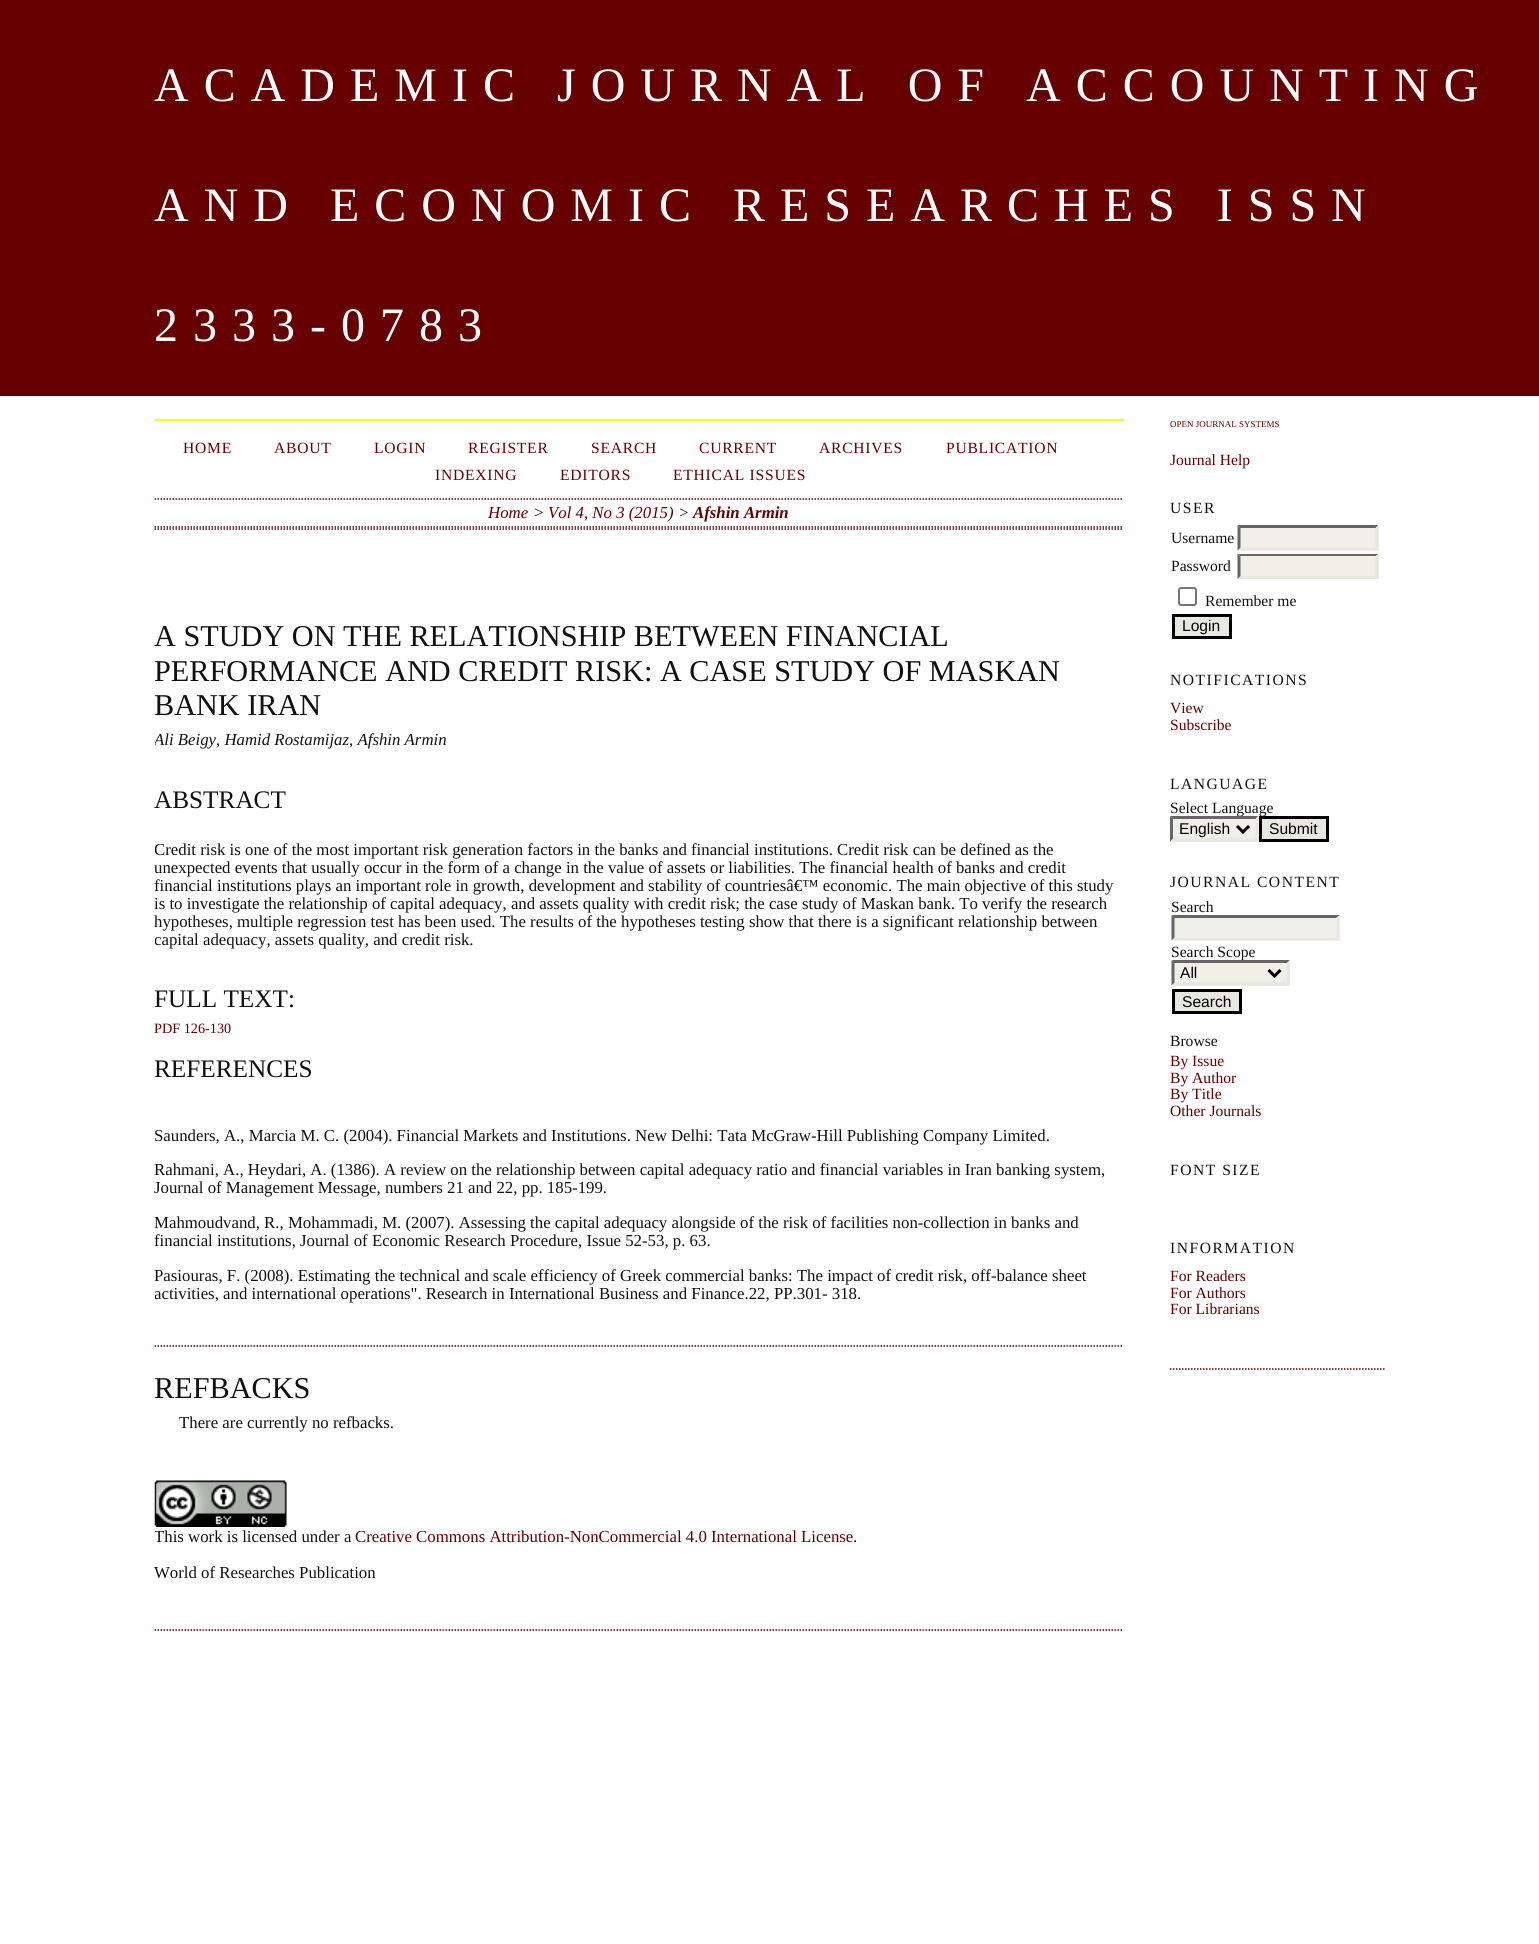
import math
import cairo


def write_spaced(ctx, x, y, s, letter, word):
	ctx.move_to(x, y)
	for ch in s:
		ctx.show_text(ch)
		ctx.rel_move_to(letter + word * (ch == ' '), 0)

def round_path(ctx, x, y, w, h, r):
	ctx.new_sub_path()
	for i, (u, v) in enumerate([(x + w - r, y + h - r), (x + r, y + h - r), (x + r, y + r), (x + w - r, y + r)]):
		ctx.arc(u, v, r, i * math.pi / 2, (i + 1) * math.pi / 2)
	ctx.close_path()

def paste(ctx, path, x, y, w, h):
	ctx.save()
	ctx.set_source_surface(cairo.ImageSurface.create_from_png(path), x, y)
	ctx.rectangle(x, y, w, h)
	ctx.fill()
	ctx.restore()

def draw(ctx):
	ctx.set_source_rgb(1, 1, 1)
	ctx.paint()
	ctx.set_source_rgb(0.4, 0, 0)
	ctx.rectangle(0, 0, 1539, 396)
	ctx.fill()
	ctx.select_font_face('Liberation Serif')
	ctx.set_font_size(48)
	ctx.set_source_rgb(1, 1, 1)
	for x, y, s in [
		(154, 101, 'ACADEMIC JOURNAL OF ACCOUNTING'),
		(154, 221, 'AND ECONOMIC RESEARCHES ISSN'),
		(154, 341, '2333-0783'),
	]:
		write_spaced(ctx, x, y, s, 15, 0)
	ctx.set_source_rgb(1, 1, 0)
	ctx.rectangle(155, 419, 969, 2)
	ctx.fill()
	ctx.new_path()
	ctx.move_to(154.5, 1630)
	ctx.line_to(1123.5, 1630)
	ctx.set_source_rgb(0.4, 0, 0)
	ctx.set_line_width(1.5)
	ctx.set_dash([1.5, 1.5])
	ctx.stroke()
	ctx.new_path()
	ctx.move_to(154.5, 499)
	ctx.line_to(1123.5, 499)
	ctx.stroke()
	ctx.set_font_size(15.6)
	for x, y, s in [
		(183, 453, 'HOME'),
		(274, 453, 'ABOUT'),
		(374, 453, 'LOGIN'),
		(468, 453, 'REGISTER'),
		(591, 453, 'SEARCH'),
		(699, 453, 'CURRENT'),
		(819, 453, 'ARCHIVES'),
		(946, 453, 'PUBLICATION'),
		(435, 480, 'INDEXING'),
		(560, 480, 'EDITORS'),
		(673, 480, 'ETHICAL ISSUES'),
	]:
		write_spaced(ctx, x, y, s, 0.75, 0)
	ctx.new_path()
	ctx.move_to(154.5, 527)
	ctx.line_to(1123.5, 527)
	ctx.stroke()
	ctx.select_font_face('Liberation Serif', cairo.FONT_SLANT_ITALIC)
	ctx.set_font_size(16.8)
	ctx.move_to(488, 518)
	ctx.show_text('Home')
	ctx.set_source_rgb(0.067, 0.067, 0.067)
	ctx.move_to(533, 518)
	ctx.show_text('>')
	ctx.set_source_rgb(0.4, 0, 0)
	ctx.move_to(548, 518)
	ctx.show_text('Vol 4, No 3 (2015)')
	ctx.set_source_rgb(0.067, 0.067, 0.067)
	ctx.move_to(678, 518)
	ctx.show_text('>')
	ctx.select_font_face('Liberation Serif', cairo.FONT_SLANT_ITALIC, cairo.FONT_WEIGHT_BOLD)
	ctx.set_source_rgb(0.4, 0, 0)
	ctx.move_to(693, 518)
	ctx.show_text('Afshin Armin')
	ctx.new_path()
	ctx.move_to(154.5, 529)
	ctx.line_to(1123.5, 529)
	ctx.stroke()
	ctx.select_font_face('Liberation Serif')
	ctx.set_font_size(30.25)
	ctx.set_source_rgb(0.067, 0.067, 0.067)
	for x, y, s in [
		(154, 646, 'A STUDY ON THE RELATIONSHIP BETWEEN FINANCIAL'),
		(154, 681, 'PERFORMANCE AND CREDIT RISK: A CASE STUDY OF MASKAN'),
		(154, 715, 'BANK IRAN'),
	]:
		ctx.move_to(x, y)
		ctx.show_text(s)
	ctx.save()
	ctx.rectangle(155, 420, 969, 1209)
	ctx.clip()
	ctx.select_font_face('Liberation Serif', cairo.FONT_SLANT_ITALIC)
	ctx.set_font_size(16.8)
	ctx.move_to(154, 745)
	ctx.show_text('Ali Beigy, Hamid Rostamijaz, Afshin Armin')
	ctx.restore()
	ctx.set_font_size(25.25)
	ctx.move_to(154, 808)
	ctx.show_text('ABSTRACT')
	ctx.save()
	ctx.rectangle(155, 420, 969, 1209)
	ctx.clip()
	ctx.set_font_size(16.8)
	ctx.move_to(154, 855)
	ctx.show_text('Credit risk is one of the most important risk generation factors in the banks and financial institutions. Credit risk can be defined as the')
	ctx.restore()
	ctx.set_font_size(16.8)
	for x, y, s in [
		(154, 873, 'unexpected events that usually occur in the form of a change in the value of assets or liabilities. The financial health of banks and credit'),
		(154, 891, 'financial institutions plays an important role in growth, development and stability of countriesâ€™ economic. The main objective of this study'),
		(154, 909, 'is to investigate the relationship of capital adequacy, and assets quality with credit risk; the case study of Maskan bank. To verify the research'),
		(154, 927, 'hypotheses, multiple regression test has been used. The results of the hypotheses testing show that there is a significant relationship between'),
	]:
		ctx.move_to(x, y)
		ctx.show_text(s)
	ctx.save()
	ctx.rectangle(155, 420, 969, 1209)
	ctx.clip()
	ctx.move_to(154, 945)
	ctx.show_text('capital adequacy, assets quality, and credit risk.')
	ctx.set_font_size(25.25)
	ctx.move_to(154, 1007)
	ctx.show_text('FULL TEXT:')
	ctx.restore()
	ctx.set_font_size(14.25)
	ctx.set_source_rgb(0.4, 0, 0)
	ctx.move_to(154, 1033)
	ctx.show_text('PDF 126-130')
	ctx.save()
	ctx.rectangle(155, 420, 969, 1209)
	ctx.clip()
	ctx.set_font_size(25.25)
	ctx.set_source_rgb(0.067, 0.067, 0.067)
	ctx.move_to(154, 1077)
	ctx.show_text('REFERENCES')
	ctx.restore()
	ctx.set_font_size(16.8)
	ctx.set_source_rgb(0.067, 0.067, 0.067)
	for x, y, s in [
		(154, 1141, 'Saunders, A., Marcia M. C. (2004). Financial Markets and Institutions. New Delhi: Tata McGraw-Hill Publishing Company Limited.'),
		(154, 1175, 'Rahmani, A., Heydari, A. (1386). A review on the relationship between capital adequacy ratio and financial variables in Iran banking system,'),
		(154, 1193, 'Journal of Management Message, numbers 21 and 22, pp. 185-199.'),
		(154, 1228, 'Mahmoudvand, R., Mohammadi, M. (2007). Assessing the capital adequacy alongside of the risk of facilities non-collection in banks and'),
		(154, 1246, 'financial institutions, Journal of Economic Research Procedure, Issue 52-53, p. 63.'),
		(154, 1281, 'Pasiouras, F. (2008). Estimating the technical and scale efficiency of Greek commercial banks: The impact of credit risk, off-balance sheet'),
	]:
		ctx.move_to(x, y)
		ctx.show_text(s)
	ctx.save()
	ctx.rectangle(155, 420, 969, 1209)
	ctx.clip()
	ctx.move_to(154, 1299)
	ctx.show_text('activities, and international operations". Research in International Business and Finance.22, PP.301- 318.')
	ctx.restore()
	ctx.new_path()
	ctx.move_to(154.5, 1346)
	ctx.line_to(1123.5, 1346)
	ctx.set_source_rgb(0.4, 0, 0)
	ctx.stroke()
	ctx.set_font_size(30.25)
	ctx.set_source_rgb(0.067, 0.067, 0.067)
	ctx.move_to(154, 1398)
	ctx.show_text('REFBACKS')
	ctx.set_font_size(16.8)
	ctx.move_to(179, 1428)
	ctx.show_text('There are currently no refbacks.')
	paste(ctx, 'media/1.png', 154, 1480, 133, 47)
	ctx.save()
	ctx.rectangle(155, 420, 969, 1209)
	ctx.clip()
	ctx.move_to(154, 1542)
	ctx.show_text('This work is licensed under a')
	ctx.restore()
	ctx.set_source_rgb(0.4, 0, 0)
	ctx.move_to(355, 1542)
	ctx.show_text('Creative Commons Attribution-NonCommercial 4.0 International License')
	ctx.set_source_rgb(0.067, 0.067, 0.067)
	ctx.move_to(853, 1542)
	ctx.show_text('.')
	ctx.move_to(154, 1578)
	ctx.show_text('World of Researches Publication')
	ctx.new_path()
	ctx.move_to(1170, 1369)
	ctx.line_to(1384.5, 1369)
	ctx.set_source_rgb(0.4, 0, 0)
	ctx.stroke()
	ctx.set_font_size(9)
	ctx.move_to(1170, 427)
	ctx.show_text('OPEN JOURNAL SYSTEMS')
	ctx.set_font_size(15.6)
	ctx.move_to(1170, 465)
	ctx.show_text('Journal Help')
	ctx.set_source_rgb(0.067, 0.067, 0.067)
	write_spaced(ctx, 1170, 513, 'USER', 1.5, 0)
	ctx.move_to(1171, 543)
	ctx.show_text('Username')
	ctx.set_source_rgb(0.941, 0.941, 0.91)
	ctx.rectangle(1238, 525, 141, 26)
	ctx.fill()
	ctx.set_source_rgb(0.4, 0.4, 0.4)
	ctx.new_path()
	ctx.move_to(1238, 525)
	ctx.line_to(1378, 525)
	ctx.line_to(1376, 528)
	ctx.line_to(1240, 528)
	ctx.close_path()
	ctx.fill()
	ctx.set_source_rgb(0.91, 0.91, 0.882)
	ctx.new_path()
	ctx.move_to(1378.5, 525)
	ctx.line_to(1378.5, 550.5)
	ctx.line_to(1375.5, 547.5)
	ctx.line_to(1375.5, 528)
	ctx.close_path()
	ctx.fill()
	ctx.new_path()
	ctx.move_to(1378, 550)
	ctx.line_to(1238, 550)
	ctx.line_to(1240, 548)
	ctx.line_to(1376, 548)
	ctx.close_path()
	ctx.fill()
	ctx.set_source_rgb(0.4, 0.4, 0.4)
	ctx.new_path()
	ctx.move_to(1237.5, 550.5)
	ctx.line_to(1237.5, 525)
	ctx.line_to(1240.5, 528)
	ctx.line_to(1240.5, 547.5)
	ctx.close_path()
	ctx.fill()
	ctx.set_source_rgb(0.067, 0.067, 0.067)
	ctx.move_to(1171, 571)
	ctx.show_text('Password')
	ctx.set_source_rgb(0.941, 0.941, 0.91)
	ctx.rectangle(1238, 554, 141, 25)
	ctx.fill()
	ctx.set_source_rgb(0.4, 0.4, 0.4)
	ctx.new_path()
	ctx.move_to(1238, 554)
	ctx.line_to(1378, 554)
	ctx.line_to(1376, 556)
	ctx.line_to(1240, 556)
	ctx.close_path()
	ctx.fill()
	ctx.set_source_rgb(0.91, 0.91, 0.882)
	ctx.new_path()
	ctx.move_to(1378.5, 553.5)
	ctx.line_to(1378.5, 579)
	ctx.line_to(1375.5, 576)
	ctx.line_to(1375.5, 556.5)
	ctx.close_path()
	ctx.fill()
	ctx.new_path()
	ctx.move_to(1378, 579)
	ctx.line_to(1238, 579)
	ctx.line_to(1240, 576)
	ctx.line_to(1376, 576)
	ctx.close_path()
	ctx.fill()
	ctx.set_source_rgb(0.4, 0.4, 0.4)
	ctx.new_path()
	ctx.move_to(1237.5, 579)
	ctx.line_to(1237.5, 553.5)
	ctx.line_to(1240.5, 556.5)
	ctx.line_to(1240.5, 576)
	ctx.close_path()
	ctx.fill()
	round_path(ctx, 1179, 588, 17, 17, 2)
	ctx.set_source_rgb(0.463, 0.463, 0.463)
	ctx.set_line_width(2)
	ctx.set_dash([])
	ctx.stroke()
	ctx.set_source_rgb(0.067, 0.067, 0.067)
	ctx.move_to(1205, 606)
	ctx.show_text('Remember me')
	ctx.set_source_rgb(0.91, 0.91, 0.882)
	ctx.rectangle(1173.5, 615.5, 57, 22)
	ctx.fill_preserve()
	ctx.set_source_rgb(0, 0, 0)
	ctx.set_line_width(3)
	ctx.stroke()
	ctx.select_font_face('Liberation Sans')
	ctx.move_to(1182, 631)
	ctx.show_text('Login')
	ctx.select_font_face('Liberation Serif')
	ctx.set_source_rgb(0.067, 0.067, 0.067)
	write_spaced(ctx, 1170, 685, 'NOTIFICATIONS', 1.5, 0)
	ctx.set_source_rgb(0.4, 0, 0)
	ctx.move_to(1170, 713)
	ctx.show_text('View')
	ctx.move_to(1170, 730)
	ctx.show_text('Subscribe')
	ctx.set_source_rgb(0.067, 0.067, 0.067)
	write_spaced(ctx, 1170, 789, 'LANGUAGE', 1.5, 0)
	ctx.move_to(1170, 813)
	ctx.show_text('Select Language')
	ctx.set_source_rgb(0.941, 0.941, 0.91)
	ctx.rectangle(1170, 816, 89, 26)
	ctx.fill()
	ctx.set_source_rgb(0.4, 0.4, 0.4)
	ctx.new_path()
	ctx.move_to(1170, 816)
	ctx.line_to(1258, 816)
	ctx.line_to(1256, 819)
	ctx.line_to(1173, 819)
	ctx.close_path()
	ctx.fill()
	ctx.set_source_rgb(0.91, 0.91, 0.882)
	ctx.new_path()
	ctx.move_to(1258.5, 816)
	ctx.line_to(1258.5, 841.5)
	ctx.line_to(1255.5, 838.5)
	ctx.line_to(1255.5, 819)
	ctx.close_path()
	ctx.fill()
	ctx.new_path()
	ctx.move_to(1258, 842)
	ctx.line_to(1170, 842)
	ctx.line_to(1173, 838)
	ctx.line_to(1256, 838)
	ctx.close_path()
	ctx.fill()
	ctx.set_source_rgb(0.4, 0.4, 0.4)
	ctx.new_path()
	ctx.move_to(1170, 841.5)
	ctx.line_to(1170, 816)
	ctx.line_to(1173, 819)
	ctx.line_to(1173, 838.5)
	ctx.close_path()
	ctx.fill()
	ctx.new_path()
	ctx.move_to(1237, 826)
	ctx.line_to(1243, 832)
	ctx.line_to(1249, 826)
	ctx.set_source_rgb(0, 0, 0)
	ctx.stroke()
	ctx.select_font_face('Liberation Sans')
	ctx.move_to(1179, 834)
	ctx.show_text('English')
	ctx.set_source_rgb(0.91, 0.91, 0.882)
	ctx.rectangle(1260.5, 817.5, 67, 23)
	ctx.fill_preserve()
	ctx.set_source_rgb(0, 0, 0)
	ctx.stroke()
	ctx.move_to(1269, 834)
	ctx.show_text('Submit')
	ctx.select_font_face('Liberation Serif')
	ctx.set_source_rgb(0.067, 0.067, 0.067)
	write_spaced(ctx, 1170, 887, 'JOURNAL CONTENT', 1.5, 0)
	ctx.move_to(1171, 912)
	ctx.show_text('Search')
	ctx.set_source_rgb(0.941, 0.941, 0.91)
	ctx.rectangle(1172, 915, 168, 26)
	ctx.fill()
	ctx.set_source_rgb(0.4, 0.4, 0.4)
	ctx.new_path()
	ctx.move_to(1172, 915)
	ctx.line_to(1340, 915)
	ctx.line_to(1336, 918)
	ctx.line_to(1174, 918)
	ctx.close_path()
	ctx.fill()
	ctx.set_source_rgb(0.91, 0.91, 0.882)
	ctx.new_path()
	ctx.move_to(1339.5, 915)
	ctx.line_to(1339.5, 940.5)
	ctx.line_to(1336.5, 937.5)
	ctx.line_to(1336.5, 918)
	ctx.close_path()
	ctx.fill()
	ctx.new_path()
	ctx.move_to(1340, 940)
	ctx.line_to(1172, 940)
	ctx.line_to(1174, 938)
	ctx.line_to(1336, 938)
	ctx.close_path()
	ctx.fill()
	ctx.set_source_rgb(0.4, 0.4, 0.4)
	ctx.new_path()
	ctx.move_to(1171.5, 940.5)
	ctx.line_to(1171.5, 915)
	ctx.line_to(1174.5, 918)
	ctx.line_to(1174.5, 937.5)
	ctx.close_path()
	ctx.fill()
	ctx.set_source_rgb(0.067, 0.067, 0.067)
	ctx.move_to(1171, 957)
	ctx.show_text('Search Scope')
	ctx.set_source_rgb(0.941, 0.941, 0.91)
	ctx.rectangle(1172, 960, 118, 26)
	ctx.fill()
	ctx.set_source_rgb(0.4, 0.4, 0.4)
	ctx.new_path()
	ctx.move_to(1172, 960)
	ctx.line_to(1290, 960)
	ctx.line_to(1287, 963)
	ctx.line_to(1174, 963)
	ctx.close_path()
	ctx.fill()
	ctx.set_source_rgb(0.91, 0.91, 0.882)
	ctx.new_path()
	ctx.move_to(1290, 960)
	ctx.line_to(1290, 985.5)
	ctx.line_to(1287, 982.5)
	ctx.line_to(1287, 963)
	ctx.close_path()
	ctx.fill()
	ctx.new_path()
	ctx.move_to(1290, 986)
	ctx.line_to(1172, 986)
	ctx.line_to(1174, 982)
	ctx.line_to(1287, 982)
	ctx.close_path()
	ctx.fill()
	ctx.set_source_rgb(0.4, 0.4, 0.4)
	ctx.new_path()
	ctx.move_to(1171.5, 985.5)
	ctx.line_to(1171.5, 960)
	ctx.line_to(1174.5, 963)
	ctx.line_to(1174.5, 982.5)
	ctx.close_path()
	ctx.fill()
	ctx.new_path()
	ctx.move_to(1268.5, 970)
	ctx.line_to(1274.5, 976)
	ctx.line_to(1280.5, 970)
	ctx.set_source_rgb(0, 0, 0)
	ctx.stroke()
	ctx.select_font_face('Liberation Sans')
	ctx.move_to(1180, 978)
	ctx.show_text('All')
	ctx.set_source_rgb(0.91, 0.91, 0.882)
	ctx.rectangle(1173.5, 990.5, 67, 22)
	ctx.fill_preserve()
	ctx.set_source_rgb(0, 0, 0)
	ctx.stroke()
	ctx.move_to(1182, 1007)
	ctx.show_text('Search')
	ctx.select_font_face('Liberation Serif')
	ctx.set_source_rgb(0.067, 0.067, 0.067)
	ctx.move_to(1170, 1046)
	ctx.show_text('Browse')
	ctx.set_source_rgb(0.4, 0, 0)
	for x, y, s in [
		(1170, 1066, 'By Issue'),
		(1170, 1083, 'By Author'),
		(1170, 1099, 'By Title'),
		(1170, 1116, 'Other Journals'),
	]:
		ctx.move_to(x, y)
		ctx.show_text(s)
	ctx.set_source_rgb(0.067, 0.067, 0.067)
	write_spaced(ctx, 1170, 1175, 'FONT SIZE', 1.5, 0)
	write_spaced(ctx, 1170, 1253, 'INFORMATION', 1.5, 0)
	ctx.set_source_rgb(0.4, 0, 0)
	for x, y, s in [
		(1170, 1281, 'For Readers'),
		(1170, 1298, 'For Authors'),
		(1170, 1314, 'For Librarians'),
	]:
		ctx.move_to(x, y)
		ctx.show_text(s)


surface = cairo.ImageSurface(cairo.FORMAT_RGB24, 1539, 1944)
ctx = cairo.Context(surface)
options = cairo.FontOptions()
options.set_hint_metrics(cairo.HINT_METRICS_OFF)
options.set_hint_style(cairo.HINT_STYLE_NONE)
ctx.set_font_options(options)
ctx.set_miter_limit(4)
draw(ctx)
surface.write_to_png('image.png')
